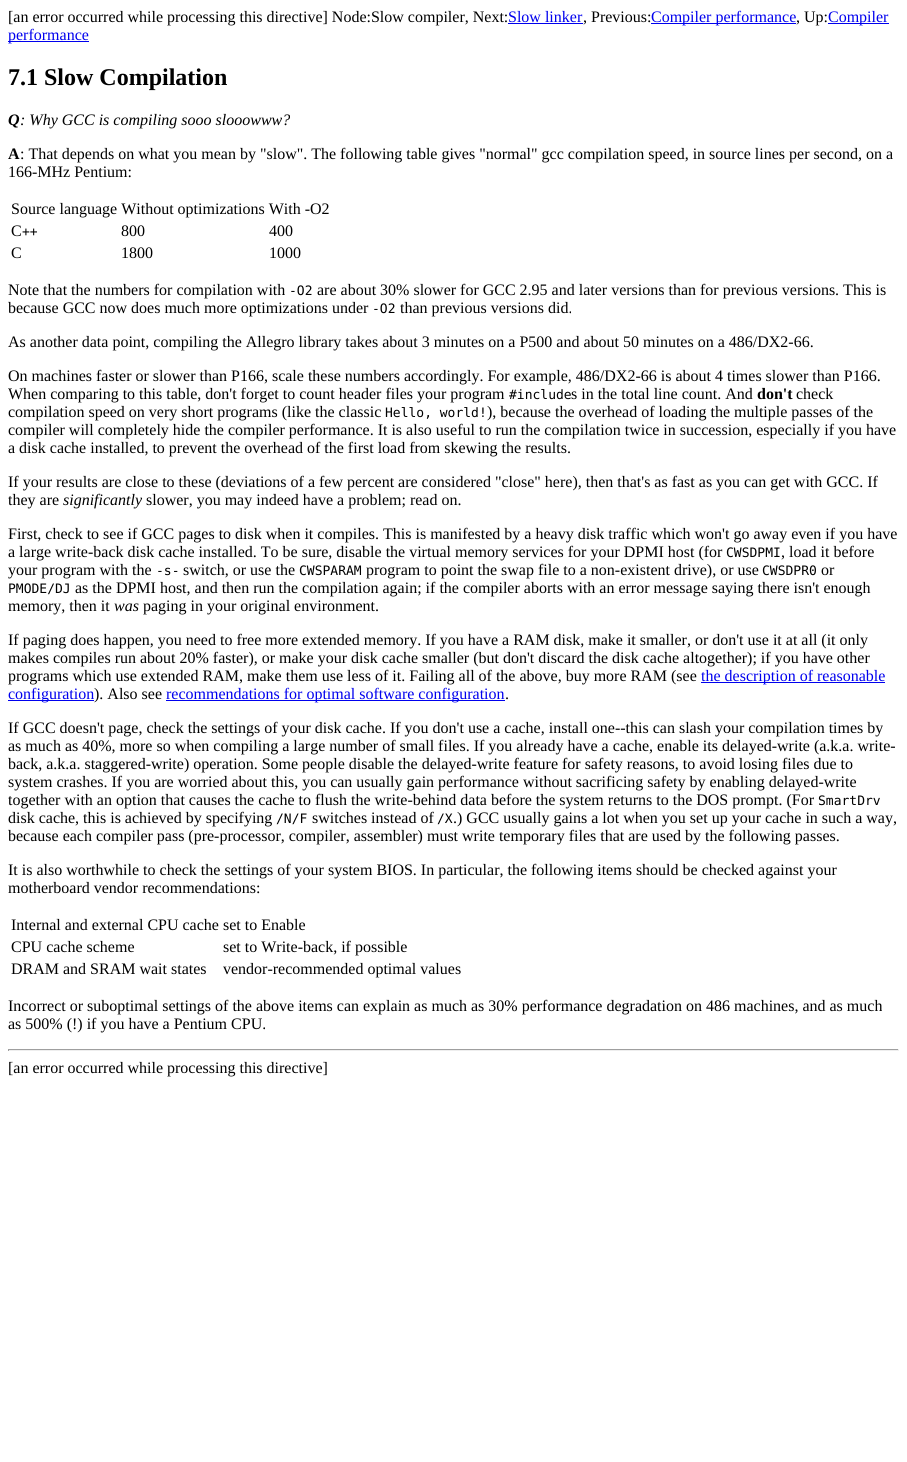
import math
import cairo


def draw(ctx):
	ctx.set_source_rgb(1, 1, 1)
	ctx.paint()
	ctx.select_font_face('Liberation Serif')
	ctx.set_font_size(16)
	ctx.set_source_rgb(0, 0, 0)
	ctx.move_to(8, 22)
	ctx.show_text('[an error occurred while processing this directive] Node:Slow compiler, Next:')
	ctx.set_source_rgb(0, 0, 0.933)
	ctx.move_to(508, 22)
	ctx.show_text('Slow linker')
	ctx.rectangle(508, 23, 75, 1)
	ctx.fill()
	ctx.set_source_rgb(0, 0, 0)
	ctx.move_to(583, 22)
	ctx.show_text(', Previous:')
	ctx.set_source_rgb(0, 0, 0.933)
	ctx.rectangle(651, 23, 145, 1)
	ctx.fill()
	ctx.move_to(651, 22)
	ctx.show_text('Compiler performance')
	ctx.set_source_rgb(0, 0, 0)
	ctx.move_to(796, 22)
	ctx.show_text(', Up:')
	ctx.set_source_rgb(0, 0, 0.933)
	ctx.rectangle(828, 23, 61, 1)
	ctx.fill()
	ctx.move_to(828, 22)
	ctx.show_text('Compiler')
	ctx.rectangle(8, 41, 81, 1)
	ctx.fill()
	ctx.move_to(8, 40)
	ctx.show_text('performance')
	ctx.select_font_face('Liberation Serif', cairo.FONT_SLANT_NORMAL, cairo.FONT_WEIGHT_BOLD)
	ctx.set_font_size(24)
	ctx.set_source_rgb(0, 0, 0)
	ctx.move_to(8, 85)
	ctx.show_text('7.1 Slow Compilation')
	ctx.select_font_face('Liberation Serif', cairo.FONT_SLANT_ITALIC, cairo.FONT_WEIGHT_BOLD)
	ctx.set_font_size(16)
	ctx.move_to(8, 125)
	ctx.show_text('Q')
	ctx.select_font_face('Liberation Serif', cairo.FONT_SLANT_ITALIC)
	ctx.move_to(20, 125)
	ctx.show_text(': Why GCC is compiling sooo slooowww?')
	ctx.select_font_face('Liberation Serif', cairo.FONT_SLANT_NORMAL, cairo.FONT_WEIGHT_BOLD)
	ctx.move_to(8, 159)
	ctx.show_text('A')
	ctx.select_font_face('Liberation Serif')
	for x, y, s in [
		(20, 159, ': That depends on what you mean by "slow". The following table gives "normal" gcc compilation speed, in source lines per second, on a'),
		(8, 177, '166-MHz Pentium:'),
		(11, 214, 'Source language Without optimizations With -O2'),
		(11, 236, 'C'),
	]:
		ctx.move_to(x, y)
		ctx.show_text(s)
	ctx.select_font_face('DejaVu Sans Mono')
	ctx.set_font_size(13)
	ctx.move_to(22, 236)
	ctx.show_text('++')
	ctx.select_font_face('Liberation Serif')
	ctx.set_font_size(16)
	for x, y, s in [
		(121, 236, '800'),
		(269, 236, '400'),
		(11, 258, 'C'),
		(121, 258, '1800'),
		(269, 258, '1000'),
		(8, 295, 'Note that the numbers for compilation with'),
	]:
		ctx.move_to(x, y)
		ctx.show_text(s)
	ctx.select_font_face('DejaVu Sans Mono')
	ctx.set_font_size(13)
	ctx.move_to(289, 295)
	ctx.show_text('-O2')
	ctx.select_font_face('Liberation Serif')
	ctx.set_font_size(16)
	ctx.move_to(317, 295)
	ctx.show_text('are about 30% slower for GCC 2.95 and later versions than for previous versions. This is')
	ctx.move_to(8, 313)
	ctx.show_text('because GCC now does much more optimizations under')
	ctx.select_font_face('DejaVu Sans Mono')
	ctx.set_font_size(13)
	ctx.move_to(372, 313)
	ctx.show_text('-O2')
	ctx.select_font_face('Liberation Serif')
	ctx.set_font_size(16)
	for x, y, s in [
		(400, 313, 'than previous versions did.'),
		(8, 347, 'As another data point, compiling the Allegro library takes about 3 minutes on a P500 and about 50 minutes on a 486/DX2-66.'),
		(8, 381, 'On machines faster or slower than P166, scale these numbers accordingly. For example, 486/DX2-66 is about 4 times slower than P166.'),
		(8, 399, 'When comparing to this table, don\'t forget to count header files your program'),
	]:
		ctx.move_to(x, y)
		ctx.show_text(s)
	ctx.select_font_face('DejaVu Sans Mono')
	ctx.set_font_size(13)
	ctx.move_to(509, 399)
	ctx.show_text('#include')
	ctx.select_font_face('Liberation Serif')
	ctx.set_font_size(16)
	ctx.move_to(571, 399)
	ctx.show_text('s in the total line count. And')
	ctx.select_font_face('Liberation Serif', cairo.FONT_SLANT_NORMAL, cairo.FONT_WEIGHT_BOLD)
	ctx.move_to(757, 399)
	ctx.show_text('don\'t')
	ctx.select_font_face('Liberation Serif')
	ctx.move_to(796, 399)
	ctx.show_text('check')
	ctx.move_to(8, 417)
	ctx.show_text('compilation speed on very short programs (like the classic')
	ctx.select_font_face('DejaVu Sans Mono')
	ctx.set_font_size(13)
	ctx.move_to(385, 417)
	ctx.show_text('Hello, world!')
	ctx.select_font_face('Liberation Serif')
	ctx.set_font_size(16)
	for x, y, s in [
		(487, 417, '), because the overhead of loading the multiple passes of the'),
		(8, 435, 'compiler will completely hide the compiler performance. It is also useful to run the compilation twice in succession, especially if you have'),
		(8, 453, 'a disk cache installed, to prevent the overhead of the first load from skewing the results.'),
		(8, 487, 'If your results are close to these (deviations of a few percent are considered "close" here), then that\'s as fast as you can get with GCC. If'),
		(8, 505, 'they are'),
	]:
		ctx.move_to(x, y)
		ctx.show_text(s)
	ctx.select_font_face('Liberation Serif', cairo.FONT_SLANT_ITALIC)
	ctx.move_to(63, 505)
	ctx.show_text('significantly')
	ctx.select_font_face('Liberation Serif')
	for x, y, s in [
		(146, 505, 'slower, you may indeed have a problem; read on.'),
		(8, 539, 'First, check to see if GCC pages to disk when it compiles. This is manifested by a heavy disk traffic which won\'t go away even if you have'),
		(8, 557, 'a large write-back disk cache installed. To be sure, disable the virtual memory services for your DPMI host (for'),
	]:
		ctx.move_to(x, y)
		ctx.show_text(s)
	ctx.select_font_face('DejaVu Sans Mono')
	ctx.set_font_size(13)
	ctx.move_to(726, 557)
	ctx.show_text('CWSDPMI')
	ctx.select_font_face('Liberation Serif')
	ctx.set_font_size(16)
	ctx.move_to(781, 557)
	ctx.show_text(', load it before')
	ctx.move_to(8, 575)
	ctx.show_text('your program with the')
	ctx.select_font_face('DejaVu Sans Mono')
	ctx.set_font_size(13)
	ctx.move_to(156, 575)
	ctx.show_text('-s-')
	ctx.select_font_face('Liberation Serif')
	ctx.set_font_size(16)
	ctx.move_to(183, 575)
	ctx.show_text('switch, or use the')
	ctx.select_font_face('DejaVu Sans Mono')
	ctx.set_font_size(13)
	ctx.move_to(299, 575)
	ctx.show_text('CWSPARAM')
	ctx.select_font_face('Liberation Serif')
	ctx.set_font_size(16)
	ctx.move_to(366, 575)
	ctx.show_text('program to point the swap file to a non-existent drive), or use')
	ctx.select_font_face('DejaVu Sans Mono')
	ctx.set_font_size(13)
	ctx.move_to(762, 575)
	ctx.show_text('CWSDPR0')
	ctx.select_font_face('Liberation Serif')
	ctx.set_font_size(16)
	ctx.move_to(821, 575)
	ctx.show_text('or')
	ctx.select_font_face('DejaVu Sans Mono')
	ctx.set_font_size(13)
	ctx.move_to(8, 593)
	ctx.show_text('PMODE/DJ')
	ctx.select_font_face('Liberation Serif')
	ctx.set_font_size(16)
	ctx.move_to(75, 593)
	ctx.show_text('as the DPMI host, and then run the compilation again; if the compiler aborts with an error message saying there isn\'t enough')
	ctx.move_to(8, 611)
	ctx.show_text('memory, then it')
	ctx.select_font_face('Liberation Serif', cairo.FONT_SLANT_ITALIC)
	ctx.move_to(114, 611)
	ctx.show_text('was')
	ctx.select_font_face('Liberation Serif')
	for x, y, s in [
		(143, 611, 'paging in your original environment.'),
		(8, 645, 'If paging does happen, you need to free more extended memory. If you have a RAM disk, make it smaller, or don\'t use it at all (it only'),
		(8, 663, 'makes compiles run about 20% faster), or make your disk cache smaller (but don\'t discard the disk cache altogether); if you have other'),
		(8, 681, 'programs which use extended RAM, make them use less of it. Failing all of the above, buy more RAM (see'),
	]:
		ctx.move_to(x, y)
		ctx.show_text(s)
	ctx.set_source_rgb(0, 0, 0.933)
	ctx.rectangle(701, 682, 184, 1)
	ctx.fill()
	ctx.move_to(701, 681)
	ctx.show_text('the description of reasonable')
	ctx.rectangle(8, 700, 86, 1)
	ctx.fill()
	ctx.move_to(8, 699)
	ctx.show_text('configuration')
	ctx.set_source_rgb(0, 0, 0)
	ctx.move_to(94, 699)
	ctx.show_text('). Also see')
	ctx.set_source_rgb(0, 0, 0.933)
	ctx.rectangle(166, 700, 339, 1)
	ctx.fill()
	ctx.move_to(166, 699)
	ctx.show_text('recommendations for optimal software configuration')
	ctx.set_source_rgb(0, 0, 0)
	for x, y, s in [
		(505, 699, '.'),
		(8, 733, 'If GCC doesn\'t page, check the settings of your disk cache. If you don\'t use a cache, install one--this can slash your compilation times by'),
		(8, 751, 'as much as 40%, more so when compiling a large number of small files. If you already have a cache, enable its delayed-write (a.k.a. write-'),
		(8, 769, 'back, a.k.a. staggered-write) operation. Some people disable the delayed-write feature for safety reasons, to avoid losing files due to'),
		(8, 787, 'system crashes. If you are worried about this, you can usually gain performance without sacrificing safety by enabling delayed-write'),
		(8, 805, 'together with an option that causes the cache to flush the write-behind data before the system returns to the DOS prompt. (For'),
	]:
		ctx.move_to(x, y)
		ctx.show_text(s)
	ctx.select_font_face('DejaVu Sans Mono')
	ctx.set_font_size(13)
	ctx.move_to(818, 805)
	ctx.show_text('SmartDrv')
	ctx.select_font_face('Liberation Serif')
	ctx.set_font_size(16)
	ctx.move_to(8, 823)
	ctx.show_text('disk cache, this is achieved by specifying')
	ctx.select_font_face('DejaVu Sans Mono')
	ctx.set_font_size(13)
	ctx.move_to(276, 823)
	ctx.show_text('/N/F')
	ctx.select_font_face('Liberation Serif')
	ctx.set_font_size(16)
	ctx.move_to(312, 823)
	ctx.show_text('switches instead of')
	ctx.select_font_face('DejaVu Sans Mono')
	ctx.set_font_size(13)
	ctx.move_to(437, 823)
	ctx.show_text('/X')
	ctx.select_font_face('Liberation Serif')
	ctx.set_font_size(16)
	for x, y, s in [
		(453, 823, '.) GCC usually gains a lot when you set up your cache in such a way,'),
		(8, 841, 'because each compiler pass (pre-processor, compiler, assembler) must write temporary files that are used by the following passes.'),
		(8, 875, 'It is also worthwhile to check the settings of your system BIOS. In particular, the following items should be checked against your'),
		(8, 893, 'motherboard vendor recommendations:'),
		(11, 930, 'Internal and external CPU cache set to Enable'),
		(11, 952, 'CPU cache scheme'),
		(223, 952, 'set to Write-back, if possible'),
		(11, 974, 'DRAM and SRAM wait states'),
		(223, 974, 'vendor-recommended optimal values'),
		(8, 1011, 'Incorrect or suboptimal settings of the above items can explain as much as 30% performance degradation on 486 machines, and as much'),
		(8, 1029, 'as 500% (!) if you have a Pentium CPU.'),
	]:
		ctx.move_to(x, y)
		ctx.show_text(s)
	ctx.set_source_rgb(0.624, 0.624, 0.624)
	ctx.rectangle(8, 1049, 891, 1)
	ctx.fill()
	ctx.set_source_rgb(0.933, 0.933, 0.933)
	ctx.rectangle(898, 1049, 1, 2)
	ctx.rectangle(8, 1050, 891, 1)
	ctx.fill()
	ctx.set_source_rgb(0.624, 0.624, 0.624)
	ctx.rectangle(8, 1049, 1, 2)
	ctx.fill()
	ctx.set_source_rgb(0, 0, 0)
	ctx.move_to(8, 1073)
	ctx.show_text('[an error occurred while processing this directive]')


surface = cairo.ImageSurface(cairo.FORMAT_RGB24, 907, 1462)
ctx = cairo.Context(surface)
options = cairo.FontOptions()
options.set_hint_metrics(cairo.HINT_METRICS_OFF)
options.set_hint_style(cairo.HINT_STYLE_NONE)
ctx.set_font_options(options)
ctx.set_miter_limit(4)
draw(ctx)
surface.write_to_png('image.png')
